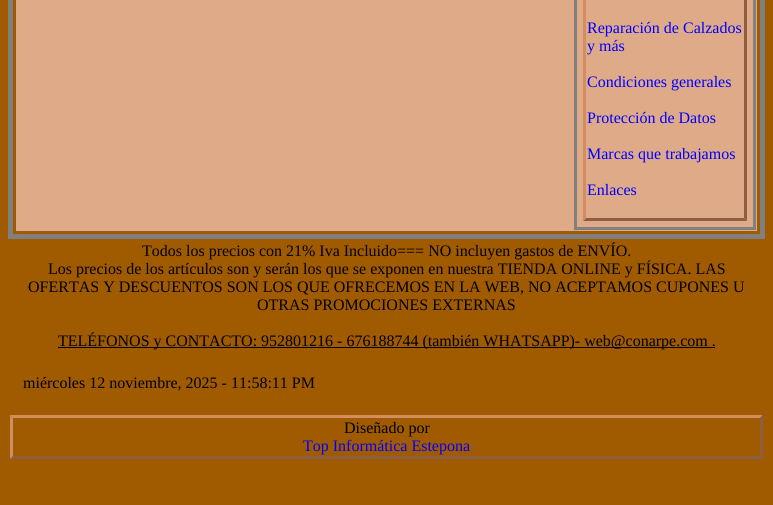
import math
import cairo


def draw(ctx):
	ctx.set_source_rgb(0.627, 0.353, 0)
	ctx.paint()
	ctx.rectangle(10.5, -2.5, 752, 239)
	ctx.set_source_rgb(0.502, 0.502, 0.502)
	ctx.set_line_width(5)
	ctx.stroke()
	ctx.set_source_rgb(0.871, 0.667, 0.529)
	ctx.rectangle(16, 0, 741, 231)
	ctx.fill()
	ctx.rectangle(575.5, -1.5, 179, 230)
	ctx.set_source_rgb(0.502, 0.502, 0.502)
	ctx.set_line_width(3)
	ctx.stroke()
	ctx.set_source_rgb(0.553, 0.369, 0.247)
	ctx.new_path()
	ctx.move_to(747, -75)
	ctx.line_to(747, 221)
	ctx.line_to(744, 218)
	ctx.line_to(744, -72)
	ctx.close_path()
	ctx.fill()
	ctx.new_path()
	ctx.move_to(747, 221)
	ctx.line_to(583, 221)
	ctx.line_to(586, 218)
	ctx.line_to(744, 218)
	ctx.close_path()
	ctx.fill()
	ctx.set_source_rgb(0.827, 0.553, 0.373)
	ctx.new_path()
	ctx.move_to(583, 221)
	ctx.line_to(583, -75)
	ctx.line_to(586, -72)
	ctx.line_to(586, 218)
	ctx.close_path()
	ctx.fill()
	ctx.select_font_face('Liberation Serif')
	ctx.set_font_size(16)
	ctx.set_source_rgb(0, 0, 1)
	for x, y, s in [
		(587, 33, 'Reparación de Calzados'),
		(587, 51, 'y más'),
		(587, 87, 'Condiciones generales'),
		(587, 123, 'Protección de Datos'),
		(587, 159, 'Marcas que trabajamos'),
		(587, 195, 'Enlaces'),
	]:
		ctx.move_to(x, y)
		ctx.show_text(s)
	ctx.set_source_rgb(0, 0, 0)
	for x, y, s in [
		(142, 256, 'Todos los precios con 21% Iva Incluido=== NO incluyen gastos de ENVÍO.'),
		(48, 274, 'Los precios de los artículos son y serán los que se exponen en nuestra TIENDA ONLINE y FÍSICA. LAS'),
		(28, 292, 'OFERTAS Y DESCUENTOS SON LOS QUE OFRECEMOS EN LA WEB, NO ACEPTAMOS CUPONES U'),
		(257, 310, 'OTRAS PROMOCIONES EXTERNAS'),
	]:
		ctx.move_to(x, y)
		ctx.show_text(s)
	ctx.rectangle(58, 347, 657, 1)
	ctx.fill()
	ctx.move_to(58, 346)
	ctx.show_text('TELÉFONOS y CONTACTO: 952801216 - 676188744 (también WHATSAPP)- web@conarpe.com .')
	ctx.move_to(23, 388)
	ctx.show_text('miércoles 12 noviembre, 2025 - 11:58:11 PM')
	ctx.set_source_rgb(0.827, 0.553, 0.373)
	ctx.new_path()
	ctx.move_to(10, 415)
	ctx.line_to(763, 415)
	ctx.line_to(760, 418)
	ctx.line_to(13, 418)
	ctx.close_path()
	ctx.fill()
	ctx.set_source_rgb(0.553, 0.369, 0.247)
	ctx.new_path()
	ctx.move_to(763, 415)
	ctx.line_to(763, 459)
	ctx.line_to(760, 456)
	ctx.line_to(760, 418)
	ctx.close_path()
	ctx.fill()
	ctx.new_path()
	ctx.move_to(763, 459)
	ctx.line_to(10, 459)
	ctx.line_to(13, 456)
	ctx.line_to(760, 456)
	ctx.close_path()
	ctx.fill()
	ctx.set_source_rgb(0.827, 0.553, 0.373)
	ctx.new_path()
	ctx.move_to(10, 459)
	ctx.line_to(10, 415)
	ctx.line_to(13, 418)
	ctx.line_to(13, 456)
	ctx.close_path()
	ctx.fill()
	ctx.set_source_rgb(0, 0, 0)
	ctx.move_to(344, 433)
	ctx.show_text('Diseñado por')
	ctx.set_source_rgb(0, 0, 1)
	ctx.move_to(303, 451)
	ctx.show_text('Top Informática Estepona')


surface = cairo.ImageSurface(cairo.FORMAT_RGB24, 773, 505)
ctx = cairo.Context(surface)
options = cairo.FontOptions()
options.set_hint_metrics(cairo.HINT_METRICS_OFF)
options.set_hint_style(cairo.HINT_STYLE_NONE)
ctx.set_font_options(options)
ctx.set_miter_limit(4)
draw(ctx)
surface.write_to_png('image.png')
